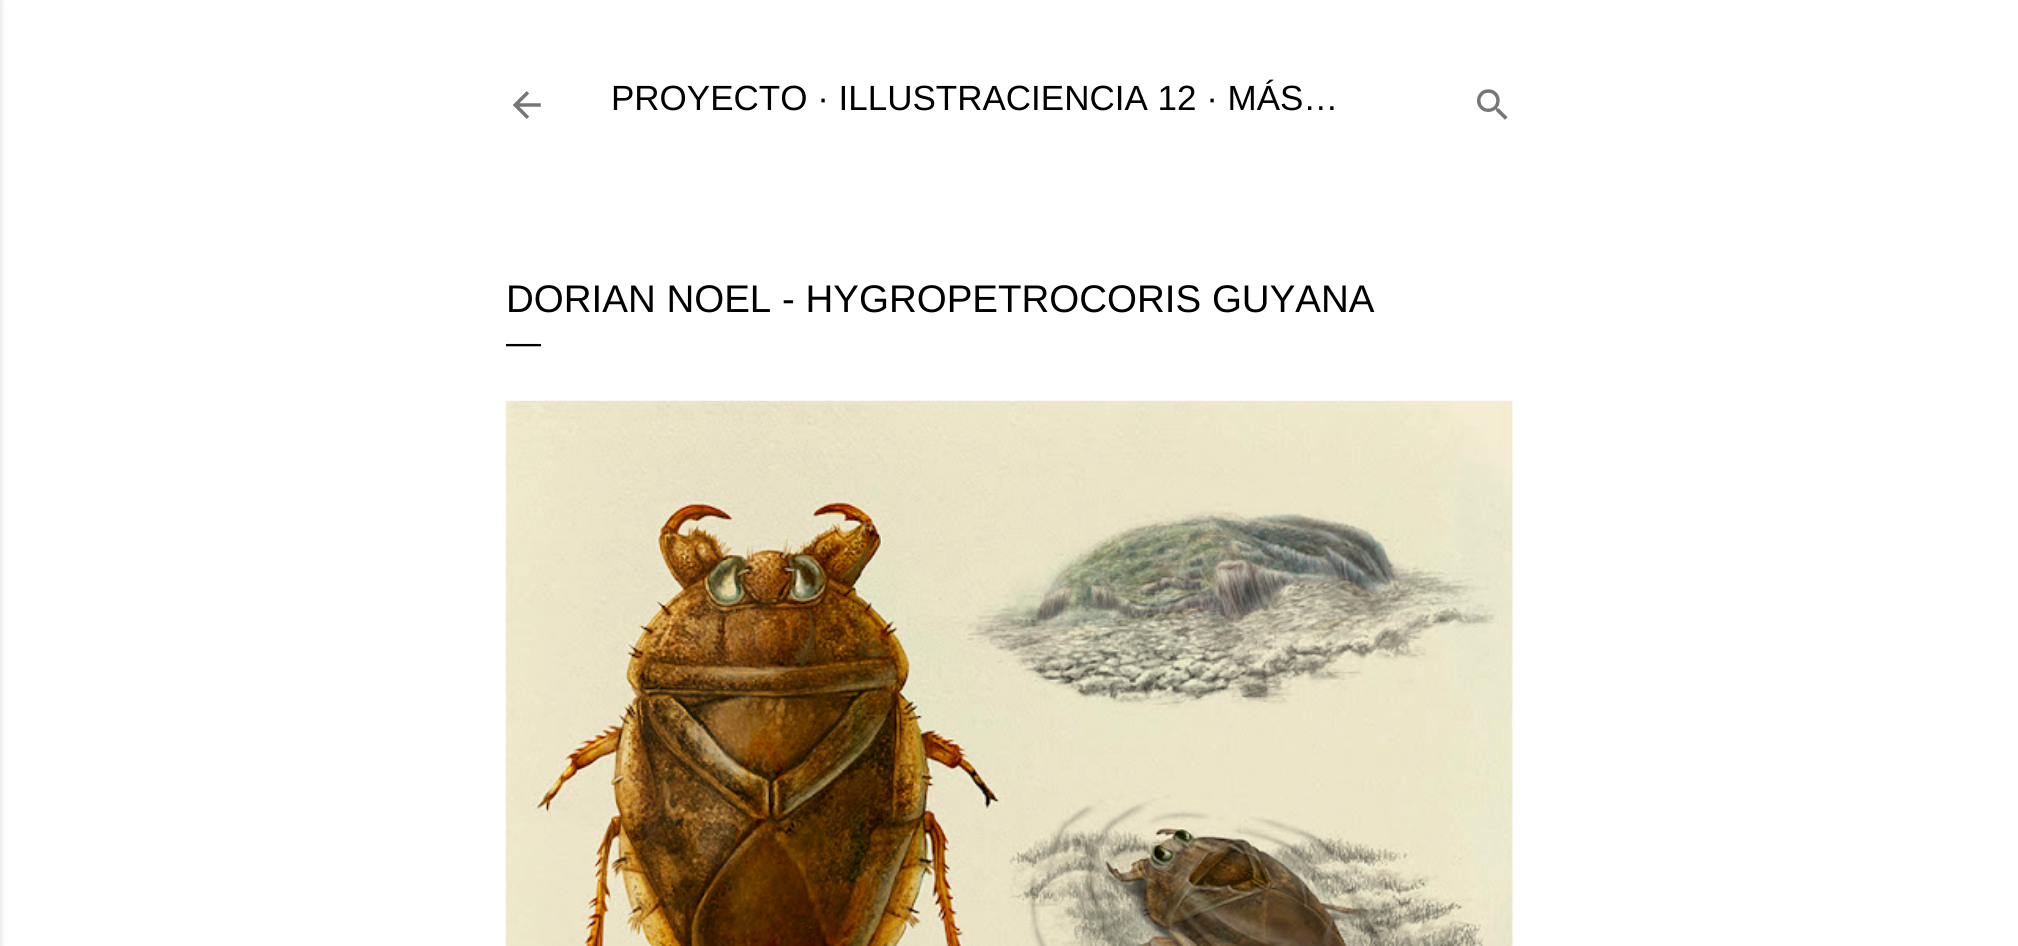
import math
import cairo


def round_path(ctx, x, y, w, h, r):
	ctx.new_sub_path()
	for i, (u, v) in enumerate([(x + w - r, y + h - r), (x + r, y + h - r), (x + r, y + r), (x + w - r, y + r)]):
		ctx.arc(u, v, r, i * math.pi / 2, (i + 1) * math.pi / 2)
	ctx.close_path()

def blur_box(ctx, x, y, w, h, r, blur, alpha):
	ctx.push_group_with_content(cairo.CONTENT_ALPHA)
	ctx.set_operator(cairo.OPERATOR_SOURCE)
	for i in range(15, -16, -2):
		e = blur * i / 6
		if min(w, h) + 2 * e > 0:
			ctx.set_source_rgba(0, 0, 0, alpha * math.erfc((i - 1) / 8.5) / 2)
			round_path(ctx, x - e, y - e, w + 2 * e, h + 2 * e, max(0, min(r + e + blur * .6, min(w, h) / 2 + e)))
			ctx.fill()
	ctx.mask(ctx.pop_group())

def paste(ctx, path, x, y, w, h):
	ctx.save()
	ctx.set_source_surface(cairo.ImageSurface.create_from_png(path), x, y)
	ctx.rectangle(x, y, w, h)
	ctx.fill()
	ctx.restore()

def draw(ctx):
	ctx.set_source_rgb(1, 1, 1)
	ctx.paint()
	ctx.set_source_rgb(0, 0, 0)
	blur_box(ctx, -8, 0, 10, 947, 0, 2.5, 0.1)
	paste(ctx, 'media/1.png', 513, 91, 28, 28)
	ctx.select_font_face('Liberation Sans')
	ctx.set_font_size(35)
	ctx.set_source_rgb(0, 0, 0)
	ctx.move_to(611, 110)
	ctx.show_text('PROYECTO · ILLUSTRACIENCIA 12 · MÁS…')
	paste(ctx, 'media/2.png', 1477, 89, 31, 31)
	ctx.set_font_size(38.5)
	ctx.move_to(506, 312)
	ctx.show_text('DORIAN NOEL - HYGROPETROCORIS GUYANA')
	ctx.set_font_size(35)
	ctx.move_to(506, 354)
	ctx.show_text('—')
	paste(ctx, 'media/3.png', 505, 400, 1009, 546)


surface = cairo.ImageSurface(cairo.FORMAT_RGB24, 2018, 946)
ctx = cairo.Context(surface)
options = cairo.FontOptions()
options.set_hint_metrics(cairo.HINT_METRICS_OFF)
options.set_hint_style(cairo.HINT_STYLE_NONE)
ctx.set_font_options(options)
ctx.set_miter_limit(4)
draw(ctx)
surface.write_to_png('image.png')
